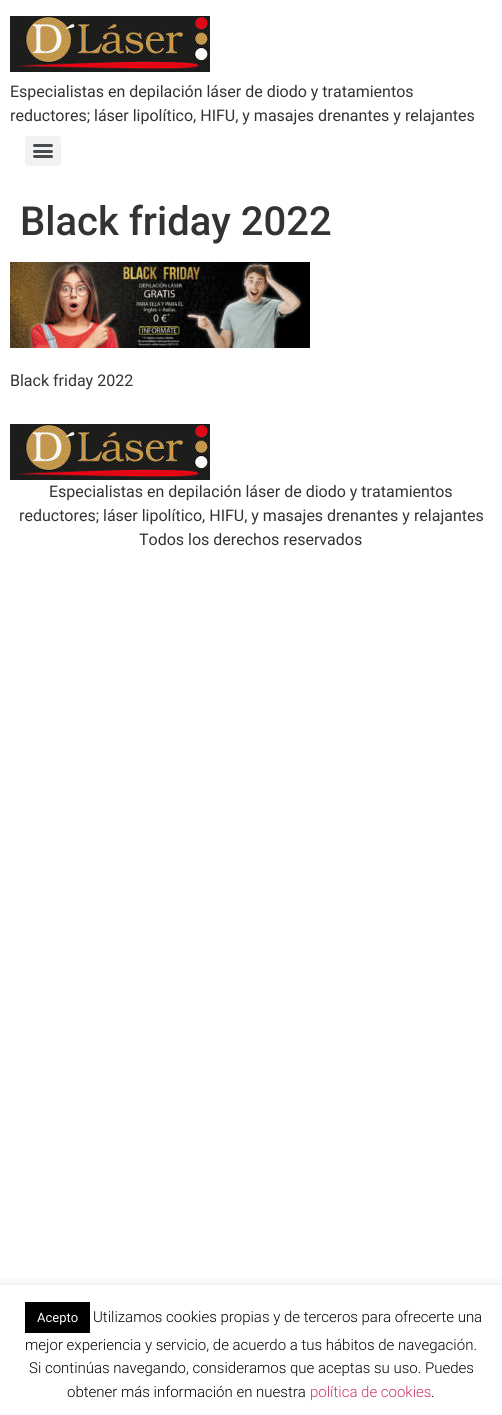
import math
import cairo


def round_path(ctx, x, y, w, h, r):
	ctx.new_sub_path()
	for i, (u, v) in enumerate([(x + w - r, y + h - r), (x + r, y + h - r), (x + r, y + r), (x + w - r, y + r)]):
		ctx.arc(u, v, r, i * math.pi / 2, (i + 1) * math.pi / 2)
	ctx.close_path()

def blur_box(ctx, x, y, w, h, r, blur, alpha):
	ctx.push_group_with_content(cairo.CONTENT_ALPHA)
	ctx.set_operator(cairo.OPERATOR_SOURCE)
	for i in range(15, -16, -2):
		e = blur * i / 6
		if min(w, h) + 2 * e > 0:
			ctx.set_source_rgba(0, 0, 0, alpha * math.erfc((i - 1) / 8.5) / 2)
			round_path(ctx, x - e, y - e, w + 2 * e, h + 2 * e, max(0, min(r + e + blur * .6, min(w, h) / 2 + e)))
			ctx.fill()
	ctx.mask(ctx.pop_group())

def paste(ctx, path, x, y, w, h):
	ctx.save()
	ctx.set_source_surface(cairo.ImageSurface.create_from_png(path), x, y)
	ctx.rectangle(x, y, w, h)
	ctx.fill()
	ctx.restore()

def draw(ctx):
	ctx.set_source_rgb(1, 1, 1)
	ctx.paint()
	paste(ctx, 'media/1.png', 10, 16, 200, 56)
	ctx.select_font_face('Roboto')
	ctx.set_font_size(16)
	ctx.set_source_rgb(0.2, 0.2, 0.2)
	ctx.move_to(10, 97)
	ctx.show_text('Especialistas en depilación láser de diodo y tratamientos')
	ctx.move_to(10, 121)
	ctx.show_text('reductores; láser lipolítico, HIFU, y masajes drenantes y relajantes')
	ctx.set_source_rgb(0.949, 0.949, 0.949)
	round_path(ctx, 25, 136, 36, 30, 3)
	ctx.fill()
	ctx.set_source_rgb(0.286, 0.298, 0.31)
	round_path(ctx, 33, 150, 20, 3, 1.5)
	ctx.fill()
	round_path(ctx, 33, 144, 20, 3, 1.5)
	ctx.fill()
	round_path(ctx, 33, 155, 20, 3, 1.5)
	ctx.fill()
	ctx.select_font_face('Roboto Medium')
	ctx.set_font_size(40)
	ctx.set_source_rgb(0.2, 0.2, 0.2)
	ctx.move_to(20, 235)
	ctx.show_text('Black friday 2022')
	paste(ctx, 'media/2.png', 10, 262, 300, 86)
	ctx.select_font_face('Roboto')
	ctx.set_font_size(16)
	ctx.move_to(10, 386)
	ctx.show_text('Black friday 2022')
	paste(ctx, 'media/1.png', 10, 424, 200, 56)
	for x, y, s in [
		(49, 497, 'Especialistas en depilación láser de diodo y tratamientos'),
		(19, 521, 'reductores; láser lipolítico, HIFU, y masajes drenantes y relajantes'),
		(139, 545, 'Todos los derechos reservados'),
	]:
		ctx.move_to(x, y)
		ctx.show_text(s)
	ctx.save()
	ctx.rectangle(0, 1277, 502, 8)
	ctx.clip()
	ctx.set_source_rgb(0.675, 0.671, 0.671)
	blur_box(ctx, 0, 1284, 502, 130, 0, 5, 0.3)
	ctx.restore()
	ctx.set_source_rgb(0, 0, 0)
	ctx.rectangle(25, 1302, 65, 31)
	ctx.fill()
	ctx.set_font_size(13)
	ctx.set_source_rgb(1, 1, 1)
	ctx.move_to(37, 1322)
	ctx.show_text('Acepto')
	ctx.select_font_face('Roboto Light')
	ctx.set_font_size(15)
	ctx.set_source_rgb(0, 0, 0)
	for x, y, s in [
		(93, 1322, 'Utilizamos cookies propias y de terceros para ofrecerte una'),
		(25, 1350, 'mejor experiencia y servicio, de acuerdo a tus hábitos de navegación.'),
		(29, 1373, 'Si continúas navegando, consideramos que aceptas su uso. Puedes'),
		(67, 1397, 'obtener más información en nuestra'),
	]:
		ctx.move_to(x, y)
		ctx.show_text(s)
	ctx.set_source_rgb(0.8, 0.2, 0.4)
	ctx.move_to(310, 1397)
	ctx.show_text('política de cookies')
	ctx.set_source_rgb(0, 0, 0)
	ctx.move_to(431, 1397)
	ctx.show_text('.')


surface = cairo.ImageSurface(cairo.FORMAT_RGB24, 502, 1415)
ctx = cairo.Context(surface)
options = cairo.FontOptions()
options.set_hint_metrics(cairo.HINT_METRICS_OFF)
options.set_hint_style(cairo.HINT_STYLE_NONE)
ctx.set_font_options(options)
ctx.set_miter_limit(4)
draw(ctx)
surface.write_to_png('image.png')
